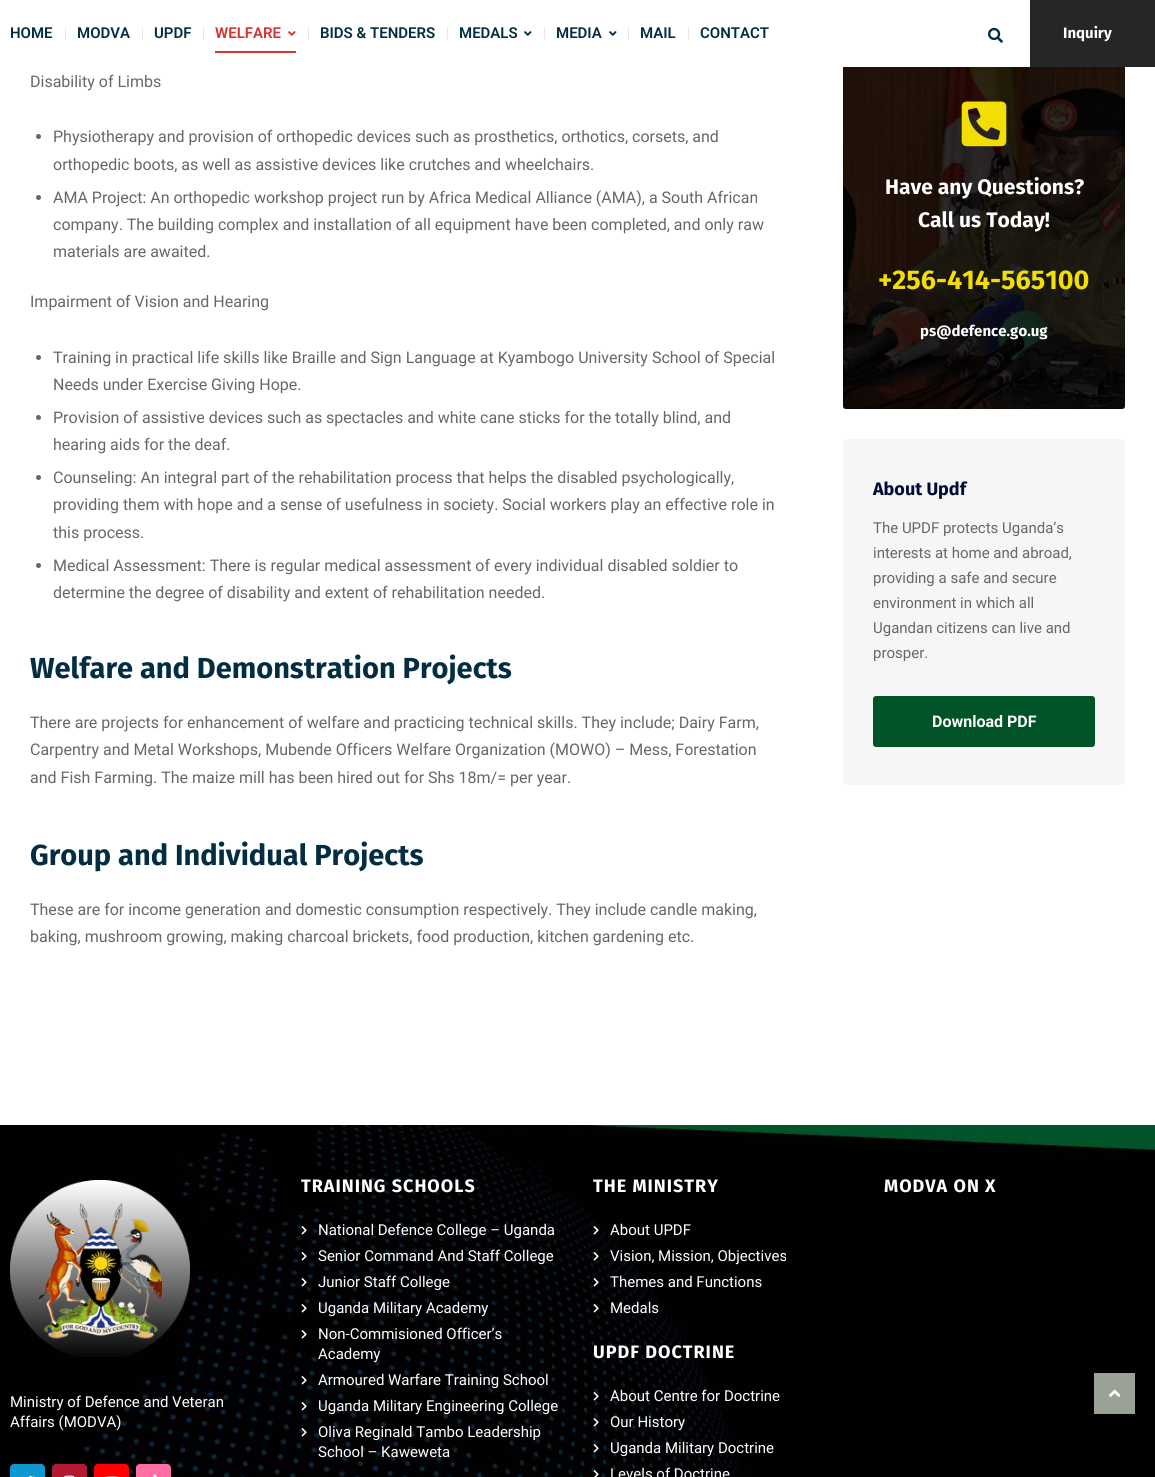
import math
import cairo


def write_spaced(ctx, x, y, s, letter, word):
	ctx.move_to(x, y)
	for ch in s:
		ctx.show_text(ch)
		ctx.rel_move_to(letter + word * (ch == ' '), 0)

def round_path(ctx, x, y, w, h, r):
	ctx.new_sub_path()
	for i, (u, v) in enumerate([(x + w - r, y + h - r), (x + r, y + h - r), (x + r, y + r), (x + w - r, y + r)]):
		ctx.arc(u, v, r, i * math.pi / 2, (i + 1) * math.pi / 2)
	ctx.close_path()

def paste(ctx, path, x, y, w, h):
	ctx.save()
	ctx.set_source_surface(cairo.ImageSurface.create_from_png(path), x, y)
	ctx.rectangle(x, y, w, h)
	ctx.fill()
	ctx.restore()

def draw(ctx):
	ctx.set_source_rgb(1, 1, 1)
	ctx.paint()
	ctx.select_font_face('Roboto SemiBold')
	ctx.set_font_size(15)
	ctx.set_source_rgb(0.012, 0.18, 0.259)
	ctx.move_to(10, 38)
	ctx.show_text('HOME')
	ctx.set_source_rgb(0.902, 0.902, 0.902)
	ctx.rectangle(65, 28, 1, 12)
	ctx.fill()
	ctx.set_source_rgb(0.012, 0.18, 0.259)
	ctx.move_to(77, 38)
	ctx.show_text('MODVA')
	ctx.set_source_rgb(0.902, 0.902, 0.902)
	ctx.rectangle(142, 28, 1, 12)
	ctx.fill()
	ctx.set_source_rgb(0.012, 0.18, 0.259)
	ctx.move_to(154, 38)
	ctx.show_text('UPDF')
	ctx.set_source_rgb(0.902, 0.902, 0.902)
	ctx.rectangle(203, 28, 1, 12)
	ctx.fill()
	ctx.set_source_rgb(0.847, 0.188, 0.188)
	ctx.move_to(215, 38)
	ctx.show_text('WELFARE')
	paste(ctx, 'media/1.png', 288, 31, 8, 5)
	ctx.rectangle(215, 51, 81, 2)
	ctx.fill()
	ctx.set_source_rgb(0.902, 0.902, 0.902)
	ctx.rectangle(308, 28, 1, 12)
	ctx.fill()
	ctx.set_source_rgb(0.012, 0.18, 0.259)
	ctx.move_to(320, 38)
	ctx.show_text('BIDS & TENDERS')
	ctx.set_source_rgb(0.902, 0.902, 0.902)
	ctx.rectangle(447, 28, 1, 12)
	ctx.fill()
	ctx.set_source_rgb(0.012, 0.18, 0.259)
	ctx.move_to(459, 38)
	ctx.show_text('MEDALS')
	paste(ctx, 'media/2.png', 524, 31, 8, 5)
	ctx.set_source_rgb(0.902, 0.902, 0.902)
	ctx.rectangle(544, 28, 1, 12)
	ctx.fill()
	ctx.set_source_rgb(0.012, 0.18, 0.259)
	ctx.move_to(556, 38)
	ctx.show_text('MEDIA')
	paste(ctx, 'media/2.png', 609, 31, 8, 5)
	ctx.set_source_rgb(0.902, 0.902, 0.902)
	ctx.rectangle(628, 28, 1, 12)
	ctx.fill()
	ctx.set_source_rgb(0.012, 0.18, 0.259)
	ctx.move_to(640, 38)
	ctx.show_text('MAIL')
	ctx.set_source_rgb(0.902, 0.902, 0.902)
	ctx.rectangle(688, 28, 1, 12)
	ctx.fill()
	ctx.set_source_rgb(0.012, 0.18, 0.259)
	ctx.move_to(700, 38)
	ctx.show_text('CONTACT')
	paste(ctx, 'media/3.png', 988, 27, 15, 16)
	ctx.set_source_rgb(0.145, 0.149, 0.157)
	ctx.rectangle(1030, 0, 125, 67)
	ctx.fill()
	ctx.select_font_face('Fira Sans', cairo.FONT_SLANT_NORMAL, cairo.FONT_WEIGHT_BOLD)
	ctx.set_source_rgb(1, 1, 1)
	ctx.move_to(1063, 38)
	ctx.show_text('Inquiry')
	ctx.select_font_face('Roboto')
	ctx.set_font_size(16)
	ctx.set_source_rgb(0.404, 0.404, 0.404)
	ctx.move_to(30, 87)
	ctx.show_text('Disability of Limbs')
	ctx.new_path()
	ctx.arc(38.5, 136.5, 2.5, 0, 2 * math.pi)
	ctx.fill()
	ctx.move_to(53, 142)
	ctx.show_text('Physiotherapy and provision of orthopedic devices such as prosthetics, orthotics, corsets, and')
	ctx.move_to(53, 170)
	ctx.show_text('orthopedic boots, as well as assistive devices like crutches and wheelchairs.')
	ctx.new_path()
	ctx.arc(38.5, 197.5, 2.5, 0, 2 * math.pi)
	ctx.fill()
	for x, y, s in [
		(53, 203, 'AMA Project: An orthopedic workshop project run by Africa Medical Alliance (AMA), a South African'),
		(53, 230, 'company. The building complex and installation of all equipment have been completed, and only raw'),
		(53, 257, 'materials are awaited.'),
		(30, 307, 'Impairment of Vision and Hearing'),
	]:
		ctx.move_to(x, y)
		ctx.show_text(s)
	ctx.new_path()
	ctx.arc(38.5, 357.5, 2.5, 0, 2 * math.pi)
	ctx.fill()
	ctx.move_to(53, 363)
	ctx.show_text('Training in practical life skills like Braille and Sign Language at Kyambogo University School of Special')
	ctx.move_to(53, 390)
	ctx.show_text('Needs under Exercise Giving Hope.')
	ctx.new_path()
	ctx.arc(38.5, 417.5, 2.5, 0, 2 * math.pi)
	ctx.fill()
	ctx.move_to(53, 423)
	ctx.show_text('Provision of assistive devices such as spectacles and white cane sticks for the totally blind, and')
	ctx.move_to(53, 450)
	ctx.show_text('hearing aids for the deaf.')
	ctx.new_path()
	ctx.arc(38.5, 477.5, 2.5, 0, 2 * math.pi)
	ctx.fill()
	for x, y, s in [
		(53, 483, 'Counseling: An integral part of the rehabilitation process that helps the disabled psychologically,'),
		(53, 510, 'providing them with hope and a sense of usefulness in society. Social workers play an effective role in'),
		(53, 538, 'this process.'),
	]:
		ctx.move_to(x, y)
		ctx.show_text(s)
	ctx.new_path()
	ctx.arc(38.5, 565.5, 2.5, 0, 2 * math.pi)
	ctx.fill()
	ctx.move_to(53, 571)
	ctx.show_text('Medical Assessment: There is regular medical assessment of every individual disabled soldier to')
	ctx.move_to(53, 598)
	ctx.show_text('determine the degree of disability and extent of rehabilitation needed.')
	ctx.select_font_face('Fira Sans', cairo.FONT_SLANT_NORMAL, cairo.FONT_WEIGHT_BOLD)
	ctx.set_font_size(29)
	ctx.set_source_rgb(0.012, 0.18, 0.259)
	ctx.move_to(30, 678)
	ctx.show_text('Welfare and Demonstration Projects')
	ctx.select_font_face('Roboto')
	ctx.set_font_size(16)
	ctx.set_source_rgb(0.404, 0.404, 0.404)
	for x, y, s in [
		(30, 728, 'There are projects for enhancement of welfare and practicing technical skills. They include; Dairy Farm,'),
		(30, 755, 'Carpentry and Metal Workshops, Mubende Officers Welfare Organization (MOWO) – Mess, Forestation'),
		(30, 783, 'and Fish Farming. The maize mill has been hired out for Shs 18m/= per year.'),
	]:
		ctx.move_to(x, y)
		ctx.show_text(s)
	ctx.select_font_face('Fira Sans', cairo.FONT_SLANT_NORMAL, cairo.FONT_WEIGHT_BOLD)
	ctx.set_font_size(29)
	ctx.set_source_rgb(0.012, 0.18, 0.259)
	ctx.move_to(30, 865)
	ctx.show_text('Group and Individual Projects')
	ctx.select_font_face('Roboto')
	ctx.set_font_size(16)
	ctx.set_source_rgb(0.404, 0.404, 0.404)
	ctx.move_to(30, 915)
	ctx.show_text('These are for income generation and domestic consumption respectively. They include candle making,')
	ctx.move_to(30, 942)
	ctx.show_text('baking, mushroom growing, making charcoal brickets, food production, kitchen gardening etc.')
	paste(ctx, 'media/4.png', 843, 67, 282, 342)
	paste(ctx, 'media/5.png', 961, 101, 46, 46)
	ctx.select_font_face('Fira Sans', cairo.FONT_SLANT_NORMAL, cairo.FONT_WEIGHT_BOLD)
	ctx.set_font_size(21)
	ctx.set_source_rgb(1, 1, 1)
	ctx.move_to(885, 194)
	ctx.show_text('Have any Questions?')
	ctx.move_to(918, 227)
	ctx.show_text('Call us Today!')
	ctx.set_font_size(27)
	ctx.set_source_rgb(0.953, 0.871, 0.012)
	ctx.move_to(878, 289)
	ctx.show_text('+256-414-565100')
	ctx.set_font_size(15)
	ctx.set_source_rgb(1, 1, 1)
	ctx.move_to(920, 336)
	ctx.show_text('ps@defence.go.ug')
	ctx.set_source_rgb(0.961, 0.961, 0.961)
	round_path(ctx, 843, 439, 282, 346, 3)
	ctx.fill()
	ctx.set_font_size(18)
	ctx.set_source_rgb(0.004, 0.043, 0.224)
	ctx.move_to(873, 495)
	ctx.show_text('About Updf')
	ctx.select_font_face('Roboto')
	ctx.set_font_size(15)
	ctx.set_source_rgb(0.404, 0.404, 0.404)
	for x, y, s in [
		(873, 533, 'The UPDF protects Uganda’s'),
		(873, 558, 'interests at home and abroad,'),
		(873, 583, 'providing a safe and secure'),
		(873, 608, 'environment in which all'),
		(873, 633, 'Ugandan citizens can live and'),
		(873, 658, 'prosper.'),
	]:
		ctx.move_to(x, y)
		ctx.show_text(s)
	ctx.set_source_rgb(0, 0.329, 0.157)
	round_path(ctx, 873, 696, 222, 51, 3)
	ctx.fill()
	ctx.select_font_face('Roboto', cairo.FONT_SLANT_NORMAL, cairo.FONT_WEIGHT_BOLD)
	ctx.set_font_size(16)
	ctx.set_source_rgb(1, 1, 1)
	ctx.move_to(932, 727)
	ctx.show_text('Download PDF')
	paste(ctx, 'media/6.png', 0, 1125, 1155, 352)
	ctx.select_font_face('Fira Sans', cairo.FONT_SLANT_NORMAL, cairo.FONT_WEIGHT_BOLD)
	ctx.set_font_size(18)
	write_spaced(ctx, 301, 1192, 'TRAINING SCHOOLS', 1, 0)
	paste(ctx, 'media/7.png', 301, 1226, 6, 9)
	ctx.select_font_face('Roboto')
	ctx.set_font_size(15)
	ctx.move_to(318, 1235)
	ctx.show_text('National Defence College – Uganda')
	paste(ctx, 'media/8.png', 301, 1252, 6, 9)
	ctx.move_to(318, 1261)
	ctx.show_text('Senior Command And Staff College')
	paste(ctx, 'media/9.png', 301, 1278, 6, 9)
	ctx.move_to(318, 1287)
	ctx.show_text('Junior Staff College')
	paste(ctx, 'media/10.png', 301, 1304, 6, 9)
	ctx.move_to(318, 1313)
	ctx.show_text('Uganda Military Academy')
	paste(ctx, 'media/11.png', 301, 1330, 6, 9)
	ctx.move_to(318, 1339)
	ctx.show_text('Non-Commisioned Officer’s')
	ctx.move_to(318, 1359)
	ctx.show_text('Academy')
	paste(ctx, 'media/12.png', 301, 1376, 6, 9)
	ctx.move_to(318, 1385)
	ctx.show_text('Armoured Warfare Training School')
	paste(ctx, 'media/13.png', 301, 1402, 6, 9)
	ctx.move_to(318, 1411)
	ctx.show_text('Uganda Military Engineering College')
	paste(ctx, 'media/14.png', 301, 1428, 6, 9)
	ctx.move_to(318, 1437)
	ctx.show_text('Oliva Reginald Tambo Leadership')
	ctx.move_to(318, 1457)
	ctx.show_text('School – Kaweweta')
	ctx.select_font_face('Fira Sans', cairo.FONT_SLANT_NORMAL, cairo.FONT_WEIGHT_BOLD)
	ctx.set_font_size(18)
	write_spaced(ctx, 593, 1192, 'THE MINISTRY', 1, 0)
	paste(ctx, 'media/15.png', 593, 1226, 6, 9)
	ctx.select_font_face('Roboto')
	ctx.set_font_size(15)
	ctx.move_to(610, 1235)
	ctx.show_text('About UPDF')
	paste(ctx, 'media/16.png', 593, 1252, 6, 9)
	ctx.move_to(610, 1261)
	ctx.show_text('Vision, Mission, Objectives')
	paste(ctx, 'media/17.png', 593, 1278, 6, 9)
	ctx.move_to(610, 1287)
	ctx.show_text('Themes and Functions')
	paste(ctx, 'media/18.png', 593, 1304, 6, 9)
	ctx.move_to(610, 1313)
	ctx.show_text('Medals')
	ctx.select_font_face('Fira Sans', cairo.FONT_SLANT_NORMAL, cairo.FONT_WEIGHT_BOLD)
	ctx.set_font_size(18)
	write_spaced(ctx, 593, 1358, 'UPDF DOCTRINE', 1, 0)
	paste(ctx, 'media/19.png', 593, 1392, 6, 9)
	ctx.select_font_face('Roboto')
	ctx.set_font_size(15)
	ctx.move_to(610, 1401)
	ctx.show_text('About Centre for Doctrine')
	paste(ctx, 'media/20.png', 593, 1418, 6, 9)
	ctx.move_to(610, 1427)
	ctx.show_text('Our History')
	paste(ctx, 'media/21.png', 593, 1444, 6, 9)
	ctx.move_to(610, 1453)
	ctx.show_text('Uganda Military Doctrine')
	paste(ctx, 'media/22.png', 593, 1470, 6, 7)
	ctx.move_to(610, 1479)
	ctx.show_text('Levels of Doctrine')
	ctx.select_font_face('Fira Sans', cairo.FONT_SLANT_NORMAL, cairo.FONT_WEIGHT_BOLD)
	ctx.set_font_size(18)
	write_spaced(ctx, 884, 1192, 'MODVA ON X', 1, 0)
	paste(ctx, 'media/23.png', 10, 1180, 180, 177)
	ctx.select_font_face('Roboto')
	ctx.set_font_size(15)
	ctx.move_to(10, 1407)
	ctx.show_text('Ministry of Defence and Veteran')
	ctx.move_to(10, 1427)
	ctx.show_text('Affairs (MODVA)')
	ctx.set_source_rgb(0.055, 0.592, 0.82)
	round_path(ctx, 10, 1464, 35, 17, 4)
	ctx.fill()
	paste(ctx, 'media/24.png', 21, 1476, 14, 1)
	ctx.set_source_rgb(0.706, 0.102, 0.196)
	round_path(ctx, 52, 1464, 35, 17, 4)
	ctx.fill()
	paste(ctx, 'media/25.png', 64, 1475, 11, 2)
	ctx.set_source_rgb(1, 0.004, 0.004)
	round_path(ctx, 94, 1464, 35, 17, 4)
	ctx.fill()
	paste(ctx, 'media/26.png', 105, 1476, 13, 1)
	ctx.set_source_rgb(1, 0.435, 0.639)
	round_path(ctx, 136, 1464, 35, 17, 4)
	ctx.fill()
	paste(ctx, 'media/27.png', 153, 1474, 4, 3)
	ctx.set_source_rgb(0.604, 0.635, 0.584)
	ctx.rectangle(1094, 1373, 41, 41)
	ctx.fill()
	paste(ctx, 'media/28.png', 1109, 1389, 12, 8)


surface = cairo.ImageSurface(cairo.FORMAT_RGB24, 1155, 1477)
ctx = cairo.Context(surface)
options = cairo.FontOptions()
options.set_hint_metrics(cairo.HINT_METRICS_OFF)
options.set_hint_style(cairo.HINT_STYLE_NONE)
ctx.set_font_options(options)
ctx.set_miter_limit(4)
draw(ctx)
surface.write_to_png('image.png')
